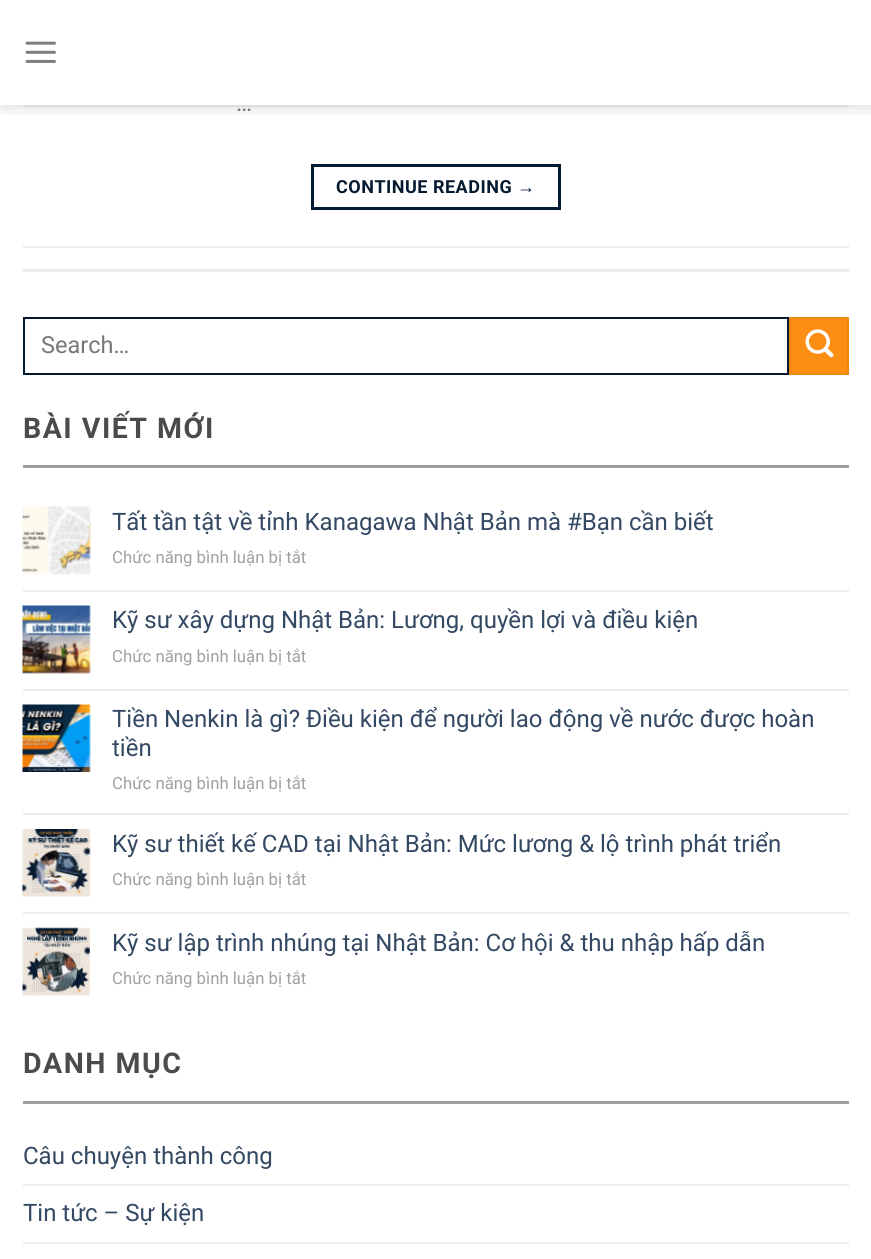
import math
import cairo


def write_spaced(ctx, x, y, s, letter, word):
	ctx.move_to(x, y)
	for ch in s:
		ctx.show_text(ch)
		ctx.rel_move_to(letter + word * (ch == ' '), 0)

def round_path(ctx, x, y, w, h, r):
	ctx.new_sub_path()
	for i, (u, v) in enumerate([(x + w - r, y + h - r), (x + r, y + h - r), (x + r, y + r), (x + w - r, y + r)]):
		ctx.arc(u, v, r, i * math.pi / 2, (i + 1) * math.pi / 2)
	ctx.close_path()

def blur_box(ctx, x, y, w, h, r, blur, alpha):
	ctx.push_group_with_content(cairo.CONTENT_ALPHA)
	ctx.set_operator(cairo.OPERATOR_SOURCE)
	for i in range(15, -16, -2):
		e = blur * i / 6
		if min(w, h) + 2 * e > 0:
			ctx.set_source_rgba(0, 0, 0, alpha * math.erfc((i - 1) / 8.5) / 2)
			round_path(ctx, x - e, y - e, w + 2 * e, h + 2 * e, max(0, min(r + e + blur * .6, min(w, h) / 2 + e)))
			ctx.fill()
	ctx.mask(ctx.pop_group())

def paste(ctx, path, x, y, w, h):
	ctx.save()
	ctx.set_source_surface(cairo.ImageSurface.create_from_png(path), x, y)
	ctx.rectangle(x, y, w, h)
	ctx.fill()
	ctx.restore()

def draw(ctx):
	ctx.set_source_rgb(1, 1, 1)
	ctx.paint()
	ctx.save()
	ctx.rectangle(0, 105, 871, 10)
	ctx.clip()
	ctx.set_source_rgb(0, 0, 0)
	blur_box(ctx, 2, 2, 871, 105, 0, 7.5, 0.15)
	ctx.restore()
	paste(ctx, 'media/1.png', 25, 41, 31, 22)
	ctx.set_source_rgba(0.467, 0.467, 0.467, 0.1)
	ctx.rectangle(23, 105, 826, 2)
	ctx.fill()
	ctx.select_font_face('Roboto')
	ctx.set_font_size(24)
	ctx.set_source_rgb(0.467, 0.467, 0.467)
	ctx.move_to(236, 111)
	ctx.show_text('…')
	ctx.rectangle(312.5, 165.5, 247, 43)
	ctx.set_source_rgb(0.016, 0.102, 0.192)
	ctx.set_line_width(3)
	ctx.stroke()
	ctx.select_font_face('Roboto', cairo.FONT_SLANT_NORMAL, cairo.FONT_WEIGHT_BOLD)
	ctx.set_font_size(18)
	write_spaced(ctx, 336, 193, 'CONTINUE READING', 0.5, 0)
	ctx.select_font_face('Liberation Sans', cairo.FONT_SLANT_NORMAL, cairo.FONT_WEIGHT_BOLD)
	write_spaced(ctx, 517, 193, '→', 0.5, 0)
	ctx.set_source_rgb(0.925, 0.925, 0.925)
	ctx.rectangle(23, 246, 826, 2)
	ctx.fill()
	ctx.rectangle(23, 269, 826, 3)
	ctx.fill()
	ctx.rectangle(24, 318, 764, 56)
	ctx.set_source_rgb(0.016, 0.102, 0.192)
	ctx.set_line_width(2)
	ctx.stroke()
	ctx.select_font_face('Roboto')
	ctx.set_font_size(23.5)
	ctx.set_source_rgb(0.467, 0.467, 0.467)
	ctx.move_to(41, 353)
	ctx.show_text('Search…')
	ctx.set_source_rgb(0.984, 0.557, 0.075)
	ctx.rectangle(790, 318, 58, 56)
	ctx.fill_preserve()
	ctx.set_source_rgb(0.933, 0.529, 0.071)
	ctx.stroke()
	paste(ctx, 'media/2.png', 805, 329, 29, 29)
	ctx.select_font_face('Roboto', cairo.FONT_SLANT_NORMAL, cairo.FONT_WEIGHT_BOLD)
	ctx.set_font_size(28.5)
	ctx.set_source_rgb(0.298, 0.294, 0.294)
	write_spaced(ctx, 23, 438, 'BÀI VIẾT MỚI', 1.5, 0)
	ctx.set_source_rgb(0.62, 0.62, 0.62)
	ctx.rectangle(23, 465, 826, 3)
	ctx.fill()
	paste(ctx, 'media/3.png', 22, 506, 69, 69)
	ctx.select_font_face('Roboto')
	ctx.set_font_size(24)
	ctx.set_source_rgb(0.2, 0.282, 0.384)
	ctx.move_to(112, 530)
	ctx.show_text('Tất tần tật về tỉnh Kanagawa Nhật Bản mà #Bạn cần biết')
	ctx.set_font_size(16.75)
	ctx.set_source_rgb(0.627, 0.627, 0.627)
	ctx.move_to(112, 563)
	ctx.show_text('Chức năng bình luận bị tắt')
	ctx.set_source_rgb(0.925, 0.925, 0.925)
	ctx.rectangle(23, 590, 826, 2)
	ctx.fill()
	paste(ctx, 'media/4.png', 22, 605, 69, 69)
	ctx.set_font_size(24)
	ctx.set_source_rgb(0.2, 0.282, 0.384)
	ctx.move_to(112, 628)
	ctx.show_text('Kỹ sư xây dựng Nhật Bản: Lương, quyền lợi và điều kiện')
	ctx.set_font_size(16.75)
	ctx.set_source_rgb(0.627, 0.627, 0.627)
	ctx.move_to(112, 662)
	ctx.show_text('Chức năng bình luận bị tắt')
	ctx.set_source_rgb(0.925, 0.925, 0.925)
	ctx.rectangle(23, 689, 826, 2)
	ctx.fill()
	paste(ctx, 'media/5.png', 22, 704, 69, 68)
	ctx.set_font_size(24)
	ctx.set_source_rgb(0.2, 0.282, 0.384)
	ctx.move_to(112, 727)
	ctx.show_text('Tiền Nenkin là gì? Điều kiện để người lao động về nước được hoàn')
	ctx.move_to(112, 756)
	ctx.show_text('tiền')
	ctx.set_font_size(16.75)
	ctx.set_source_rgb(0.627, 0.627, 0.627)
	ctx.move_to(112, 789)
	ctx.show_text('Chức năng bình luận bị tắt')
	ctx.set_source_rgb(0.925, 0.925, 0.925)
	ctx.rectangle(23, 813, 826, 2)
	ctx.fill()
	paste(ctx, 'media/6.png', 22, 829, 69, 68)
	ctx.set_font_size(24)
	ctx.set_source_rgb(0.2, 0.282, 0.384)
	ctx.move_to(112, 852)
	ctx.show_text('Kỹ sư thiết kế CAD tại Nhật Bản: Mức lương & lộ trình phát triển')
	ctx.set_font_size(16.75)
	ctx.set_source_rgb(0.627, 0.627, 0.627)
	ctx.move_to(112, 885)
	ctx.show_text('Chức năng bình luận bị tắt')
	ctx.set_source_rgb(0.925, 0.925, 0.925)
	ctx.rectangle(23, 912, 826, 2)
	ctx.fill()
	paste(ctx, 'media/7.png', 22, 927, 68, 69)
	ctx.set_font_size(24)
	ctx.set_source_rgb(0.2, 0.282, 0.384)
	ctx.move_to(112, 951)
	ctx.show_text('Kỹ sư lập trình nhúng tại Nhật Bản: Cơ hội & thu nhập hấp dẫn')
	ctx.set_font_size(16.75)
	ctx.set_source_rgb(0.627, 0.627, 0.627)
	ctx.move_to(112, 984)
	ctx.show_text('Chức năng bình luận bị tắt')
	ctx.select_font_face('Roboto', cairo.FONT_SLANT_NORMAL, cairo.FONT_WEIGHT_BOLD)
	ctx.set_font_size(28.5)
	ctx.set_source_rgb(0.298, 0.294, 0.294)
	write_spaced(ctx, 23, 1073, 'DANH MỤC', 1.5, 0)
	ctx.set_source_rgb(0.62, 0.62, 0.62)
	ctx.rectangle(23, 1101, 826, 3)
	ctx.fill()
	ctx.select_font_face('Roboto')
	ctx.set_font_size(24)
	ctx.set_source_rgb(0.2, 0.282, 0.384)
	ctx.move_to(23, 1164)
	ctx.show_text('Câu chuyện thành công')
	ctx.set_source_rgb(0.925, 0.925, 0.925)
	ctx.rectangle(23, 1184, 826, 2)
	ctx.fill()
	ctx.set_source_rgb(0.2, 0.282, 0.384)
	ctx.move_to(23, 1221)
	ctx.show_text('Tin tức – Sự kiện')
	ctx.set_source_rgb(0.925, 0.925, 0.925)
	ctx.rectangle(23, 1242, 826, 2)
	ctx.fill()


surface = cairo.ImageSurface(cairo.FORMAT_RGB24, 871, 1259)
ctx = cairo.Context(surface)
options = cairo.FontOptions()
options.set_hint_metrics(cairo.HINT_METRICS_OFF)
options.set_hint_style(cairo.HINT_STYLE_NONE)
ctx.set_font_options(options)
ctx.set_miter_limit(4)
draw(ctx)
surface.write_to_png('image.png')
